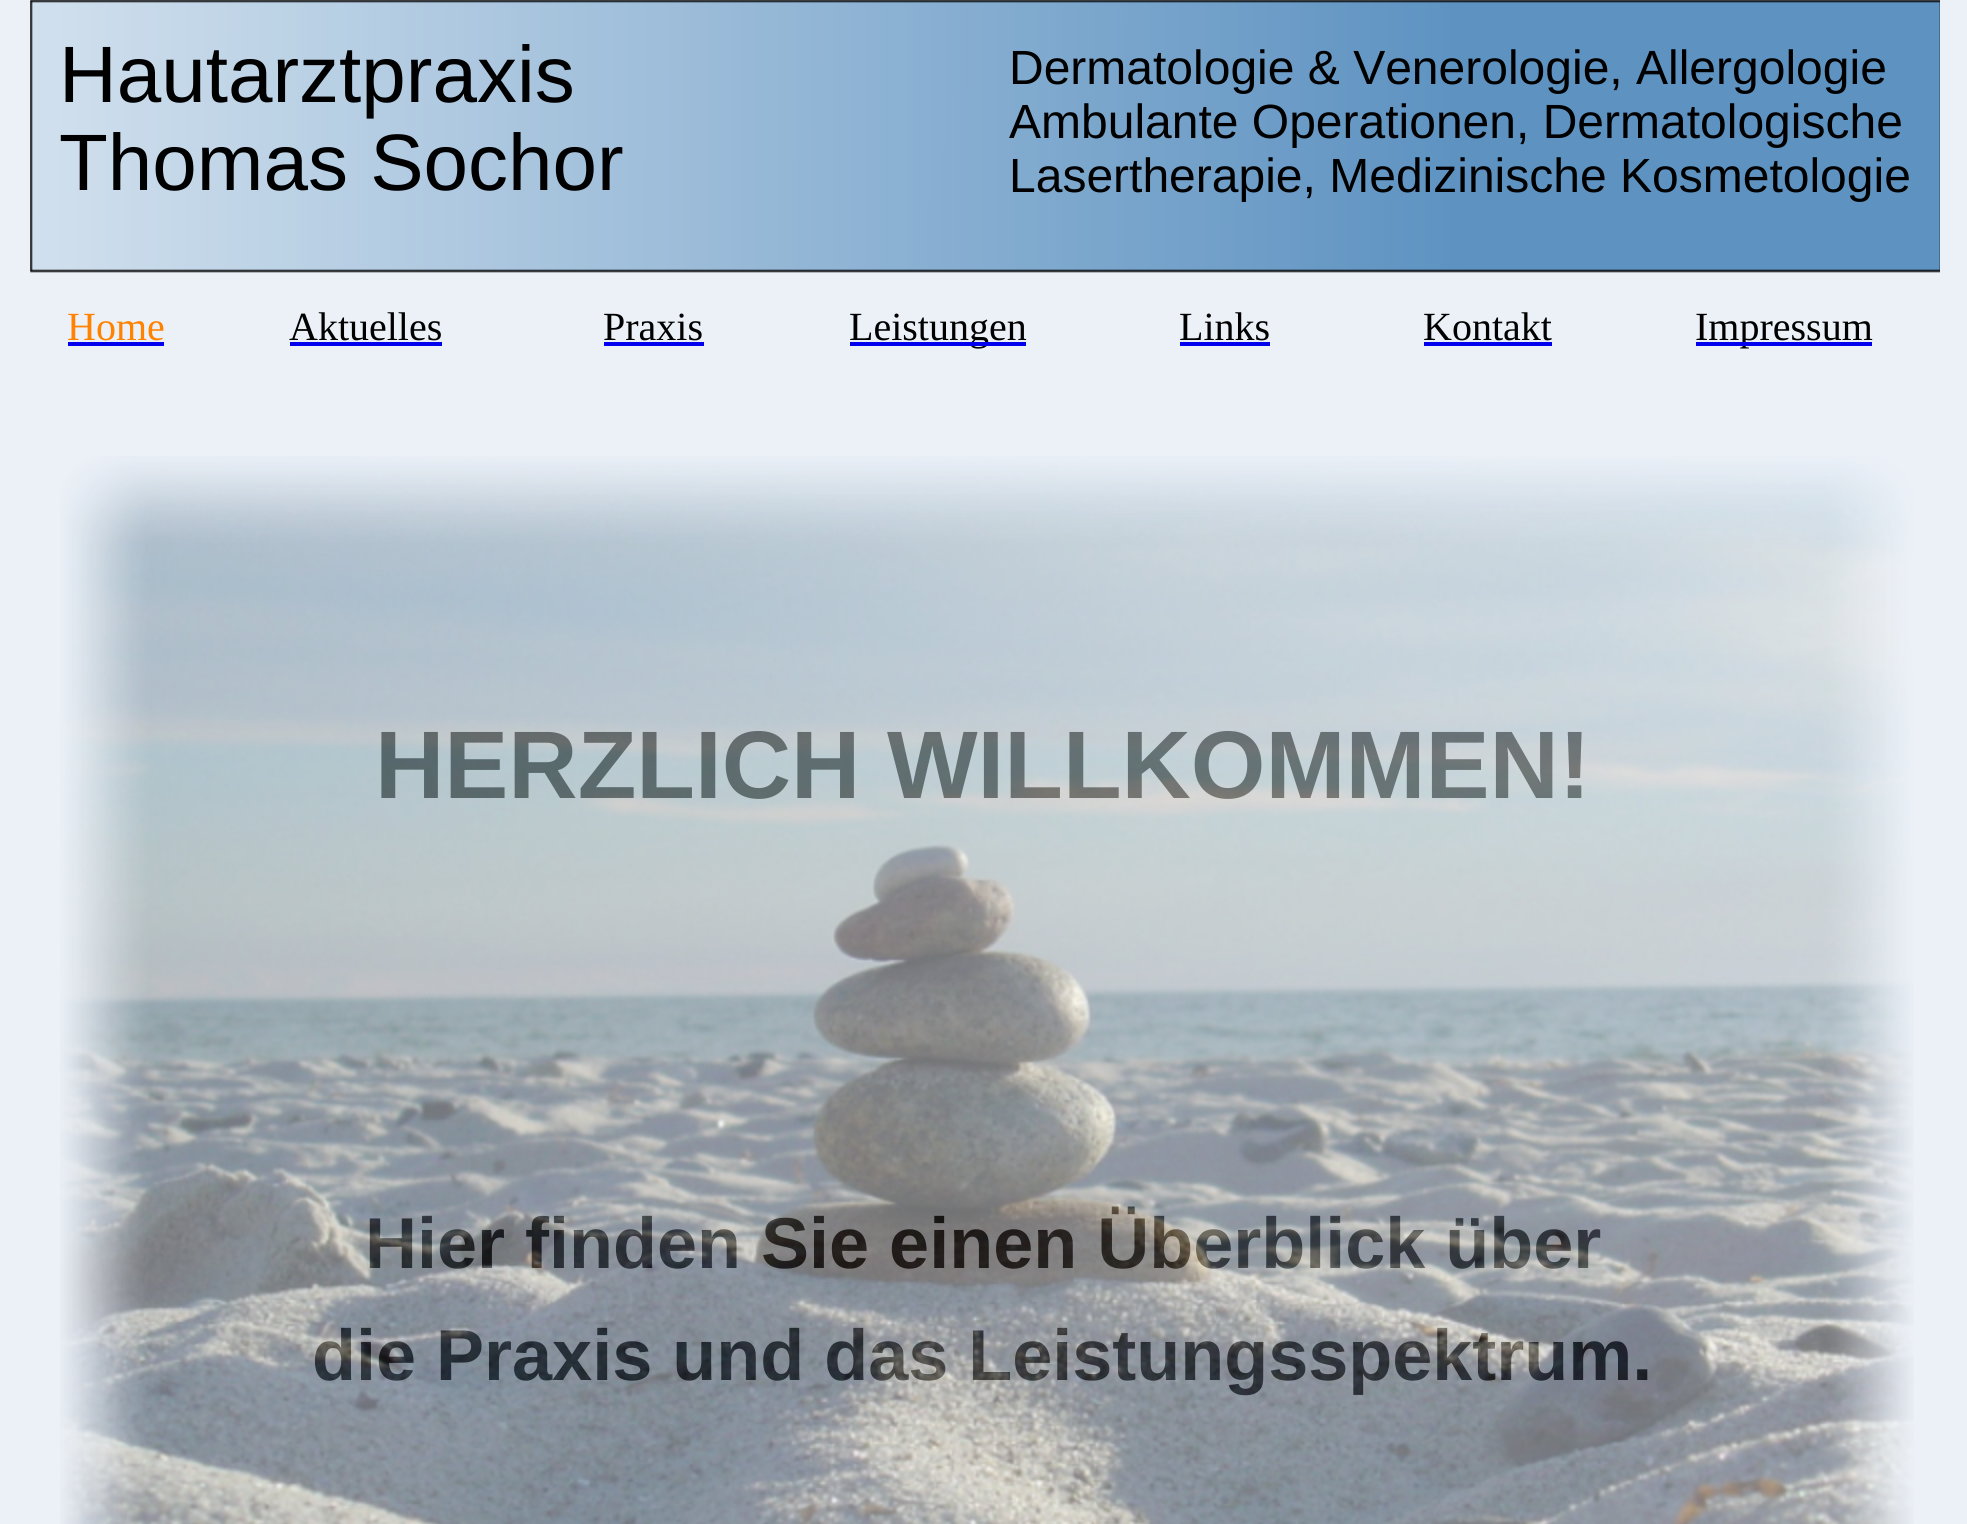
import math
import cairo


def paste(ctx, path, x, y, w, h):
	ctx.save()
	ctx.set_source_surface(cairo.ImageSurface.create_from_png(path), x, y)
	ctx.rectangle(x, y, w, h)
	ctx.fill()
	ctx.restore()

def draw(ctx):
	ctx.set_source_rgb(0.922, 0.945, 0.969)
	ctx.paint()
	paste(ctx, 'media/1.png', 30, 0, 1910, 273)
	ctx.select_font_face('Liberation Sans')
	ctx.set_font_size(80)
	ctx.set_source_rgb(0, 0, 0)
	ctx.move_to(59, 102)
	ctx.show_text('Hautarztpraxis')
	ctx.move_to(59, 190)
	ctx.show_text('Thomas Sochor')
	ctx.set_font_size(48)
	for x, y, s in [
		(1009, 84, 'Dermatologie & Venerologie, Allergologie'),
		(1009, 138, 'Ambulante Operationen, Dermatologische'),
		(1009, 192, 'Lasertherapie, Medizinische Kosmetologie'),
	]:
		ctx.move_to(x, y)
		ctx.show_text(s)
	ctx.select_font_face('Liberation Serif')
	ctx.set_font_size(40)
	ctx.set_source_rgb(1, 0.51, 0)
	ctx.move_to(67, 340)
	ctx.show_text('Home')
	ctx.set_source_rgb(0, 0, 0)
	for x, y, s in [
		(289, 340, 'Aktuelles'),
		(603, 340, 'Praxis'),
		(849, 340, 'Leistungen'),
		(1179, 340, 'Links'),
		(1423, 340, 'Kontakt'),
		(1695, 340, 'Impressum'),
	]:
		ctx.move_to(x, y)
		ctx.show_text(s)
	ctx.set_source_rgb(0, 0, 0.933)
	ctx.rectangle(68, 342, 96, 4)
	ctx.rectangle(290, 342, 152, 4)
	ctx.rectangle(604, 342, 100, 4)
	ctx.rectangle(850, 342, 176, 4)
	ctx.rectangle(1180, 342, 90, 4)
	ctx.rectangle(1424, 342, 128, 4)
	ctx.rectangle(1696, 342, 176, 4)
	ctx.fill()
	ctx.select_font_face('Liberation Sans', cairo.FONT_SLANT_NORMAL, cairo.FONT_WEIGHT_BOLD)
	ctx.set_font_size(96)
	ctx.set_source_rgb(0, 0, 0)
	ctx.move_to(375, 798)
	ctx.show_text('HERZLICH WILLKOMMEN!')
	ctx.set_font_size(72)
	ctx.move_to(365, 1268)
	ctx.show_text('Hier finden Sie einen Überblick über')
	ctx.move_to(312, 1380)
	ctx.show_text('die Praxis und das Leistungsspektrum.')
	paste(ctx, 'media/2.png', 60, 456, 1854, 1068)


surface = cairo.ImageSurface(cairo.FORMAT_RGB24, 1967, 1524)
ctx = cairo.Context(surface)
options = cairo.FontOptions()
options.set_hint_metrics(cairo.HINT_METRICS_OFF)
options.set_hint_style(cairo.HINT_STYLE_NONE)
ctx.set_font_options(options)
ctx.set_miter_limit(4)
draw(ctx)
surface.write_to_png('image.png')
